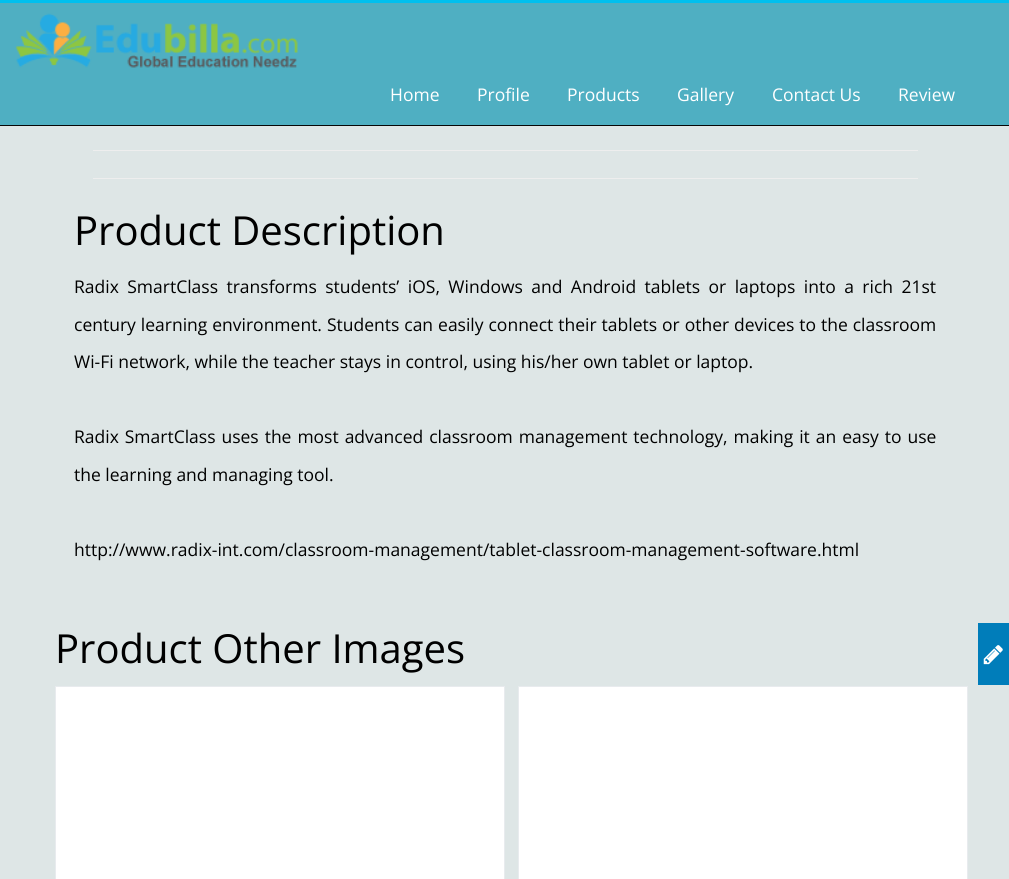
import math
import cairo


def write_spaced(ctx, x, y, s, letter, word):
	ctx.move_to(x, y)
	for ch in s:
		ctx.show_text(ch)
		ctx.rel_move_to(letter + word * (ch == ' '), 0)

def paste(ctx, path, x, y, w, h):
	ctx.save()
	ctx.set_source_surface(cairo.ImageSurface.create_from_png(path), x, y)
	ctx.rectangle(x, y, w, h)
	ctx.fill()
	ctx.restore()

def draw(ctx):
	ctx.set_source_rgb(0.871, 0.902, 0.902)
	ctx.paint()
	ctx.set_source_rgb(0, 0.753, 0.937)
	ctx.rectangle(0, 0, 1009, 3)
	ctx.fill()
	ctx.set_source_rgb(0.31, 0.686, 0.761)
	ctx.rectangle(0, 3, 1009, 122)
	ctx.fill()
	ctx.set_source_rgb(0.031, 0.031, 0.031)
	ctx.rectangle(0, 125, 1009, 1)
	ctx.fill()
	paste(ctx, 'media/1.png', 15, 13, 283, 55)
	ctx.select_font_face('Open Sans')
	ctx.set_font_size(17.5)
	ctx.set_source_rgb(1, 1, 1)
	for x, y, s in [
		(390, 101, 'Home'),
		(477, 101, 'Profile'),
		(567, 101, 'Products'),
		(677, 101, 'Gallery'),
		(772, 101, 'Contact Us'),
		(898, 101, 'Review'),
	]:
		ctx.move_to(x, y)
		ctx.show_text(s)
	ctx.set_source_rgb(0.933, 0.933, 0.933)
	ctx.rectangle(93, 150, 825, 1)
	ctx.fill()
	ctx.rectangle(93, 178, 825, 1)
	ctx.fill()
	ctx.set_font_size(40)
	ctx.set_source_rgb(0, 0, 0)
	ctx.move_to(74, 245)
	ctx.show_text('Product Description')
	ctx.set_font_size(17.5)
	write_spaced(ctx, 74, 293, 'Radix SmartClass transforms students’ iOS, Windows and Android tablets or laptops into a rich 21st', 0, 3.9)
	write_spaced(ctx, 74, 331, 'century learning environment. Students can easily connect their tablets or other devices to the classroom', 0, 0.4)
	ctx.move_to(74, 368)
	ctx.show_text('Wi-Fi network, while the teacher stays in control, using his/her own tablet or laptop.')
	write_spaced(ctx, 74, 443, 'Radix SmartClass uses the most advanced classroom management technology, making it an easy to use', 0, 1.4)
	ctx.move_to(74, 481)
	ctx.show_text('the learning and managing tool.')
	ctx.move_to(74, 556)
	ctx.show_text('http://www.radix-int.com/classroom-management/tablet-classroom-management-software.html')
	ctx.set_font_size(40)
	ctx.move_to(55, 663)
	ctx.show_text('Product Other Images')
	ctx.set_source_rgb(1, 1, 1)
	ctx.rectangle(55.5, 686.5, 449, 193)
	ctx.fill_preserve()
	ctx.set_source_rgb(0.91, 0.918, 0.933)
	ctx.set_line_width(1)
	ctx.stroke()
	ctx.set_source_rgb(1, 1, 1)
	ctx.rectangle(518.5, 686.5, 449, 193)
	ctx.fill_preserve()
	ctx.set_source_rgb(0.91, 0.918, 0.933)
	ctx.stroke()
	ctx.set_source_rgb(0, 0.49, 0.729)
	ctx.rectangle(978, 623, 31, 62)
	ctx.fill()
	paste(ctx, 'media/2.png', 983, 645, 20, 20)


surface = cairo.ImageSurface(cairo.FORMAT_RGB24, 1009, 879)
ctx = cairo.Context(surface)
options = cairo.FontOptions()
options.set_hint_metrics(cairo.HINT_METRICS_OFF)
options.set_hint_style(cairo.HINT_STYLE_NONE)
ctx.set_font_options(options)
ctx.set_miter_limit(4)
draw(ctx)
surface.write_to_png('image.png')
